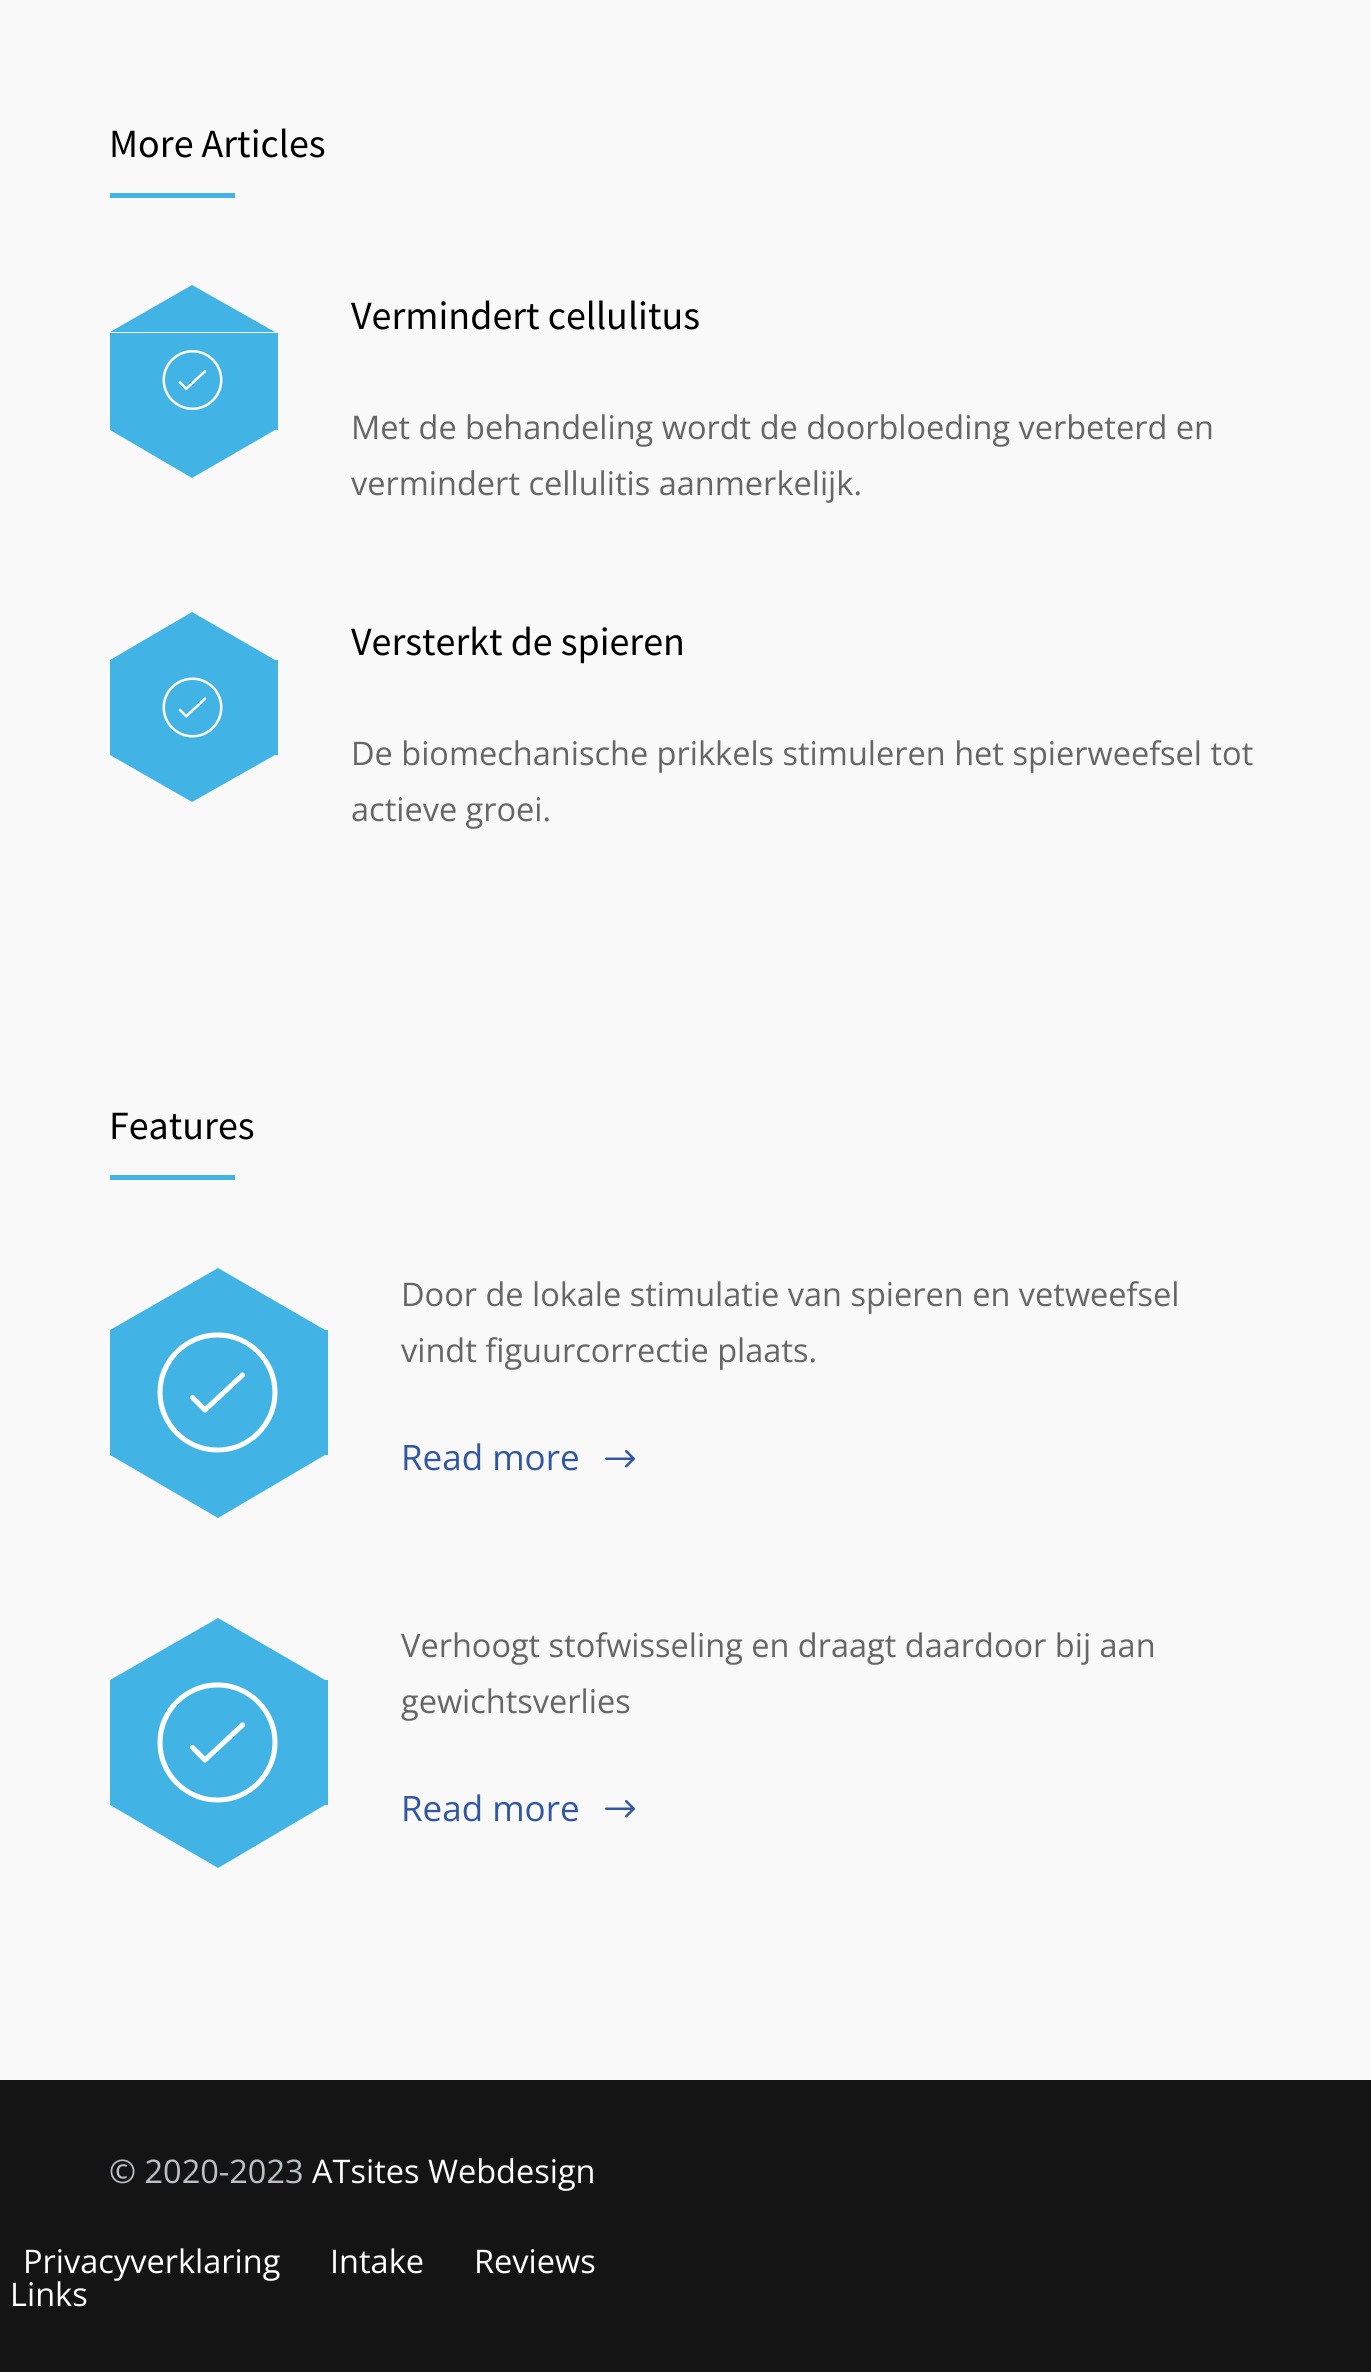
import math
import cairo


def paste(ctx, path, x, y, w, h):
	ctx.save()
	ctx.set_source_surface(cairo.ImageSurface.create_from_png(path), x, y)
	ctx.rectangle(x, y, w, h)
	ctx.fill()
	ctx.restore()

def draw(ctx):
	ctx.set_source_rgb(0.973, 0.973, 0.973)
	ctx.paint()
	ctx.select_font_face('Source Sans Pro')
	ctx.set_font_size(40)
	ctx.set_source_rgb(0, 0, 0)
	ctx.move_to(109, 157)
	ctx.show_text('More Articles')
	ctx.set_source_rgb(0.259, 0.702, 0.898)
	ctx.rectangle(110, 193, 125, 5)
	ctx.fill()
	ctx.rectangle(110, 333, 168, 97)
	ctx.fill()
	ctx.new_path()
	ctx.move_to(275, 332)
	ctx.line_to(110, 332)
	ctx.line_to(192, 285)
	ctx.close_path()
	ctx.fill()
	paste(ctx, 'media/1.png', 162, 350, 61, 60)
	ctx.new_path()
	ctx.move_to(110, 430)
	ctx.line_to(275, 430)
	ctx.line_to(192, 478)
	ctx.close_path()
	ctx.fill()
	ctx.set_source_rgb(0, 0, 0)
	ctx.move_to(351, 329)
	ctx.show_text('Vermindert cellulitus')
	ctx.select_font_face('Open Sans')
	ctx.set_font_size(32.5)
	ctx.set_source_rgb(0.4, 0.4, 0.4)
	ctx.move_to(351, 439)
	ctx.show_text('Met de behandeling wordt de doorbloeding verbeterd en')
	ctx.move_to(351, 495)
	ctx.show_text('vermindert cellulitis aanmerkelijk.')
	ctx.set_source_rgb(0.259, 0.702, 0.898)
	ctx.rectangle(110, 660, 168, 95)
	ctx.fill()
	ctx.new_path()
	ctx.move_to(275, 660)
	ctx.line_to(110, 660)
	ctx.line_to(192, 612)
	ctx.close_path()
	ctx.fill()
	paste(ctx, 'media/2.png', 162, 677, 61, 61)
	ctx.new_path()
	ctx.move_to(110, 755)
	ctx.line_to(275, 755)
	ctx.line_to(192, 802)
	ctx.close_path()
	ctx.fill()
	ctx.select_font_face('Source Sans Pro')
	ctx.set_font_size(40)
	ctx.set_source_rgb(0, 0, 0)
	ctx.move_to(351, 655)
	ctx.show_text('Versterkt de spieren')
	ctx.select_font_face('Open Sans')
	ctx.set_font_size(32.5)
	ctx.set_source_rgb(0.4, 0.4, 0.4)
	ctx.move_to(351, 765)
	ctx.show_text('De biomechanische prikkels stimuleren het spierweefsel tot')
	ctx.move_to(351, 821)
	ctx.show_text('actieve groei.')
	ctx.select_font_face('Source Sans Pro')
	ctx.set_font_size(40)
	ctx.set_source_rgb(0, 0, 0)
	ctx.move_to(109, 1139)
	ctx.show_text('Features')
	ctx.set_source_rgb(0.259, 0.702, 0.898)
	ctx.rectangle(110, 1175, 125, 5)
	ctx.fill()
	ctx.rectangle(110, 1330, 218, 125)
	ctx.fill()
	ctx.new_path()
	ctx.move_to(325, 1330)
	ctx.line_to(110, 1330)
	ctx.line_to(218, 1268)
	ctx.close_path()
	ctx.fill()
	paste(ctx, 'media/3.png', 157, 1332, 121, 121)
	ctx.new_path()
	ctx.move_to(110, 1455)
	ctx.line_to(325, 1455)
	ctx.line_to(218, 1518)
	ctx.close_path()
	ctx.fill()
	ctx.select_font_face('Open Sans')
	ctx.set_font_size(32.5)
	ctx.set_source_rgb(0.4, 0.4, 0.4)
	ctx.move_to(401, 1306)
	ctx.show_text('Door de lokale stimulatie van spieren en vetweefsel')
	ctx.move_to(401, 1362)
	ctx.show_text('vindt figuurcorrectie plaats.')
	ctx.set_font_size(35)
	ctx.set_source_rgb(0.192, 0.337, 0.639)
	ctx.move_to(401, 1470)
	ctx.show_text('Read more')
	paste(ctx, 'media/4.png', 605, 1450, 30, 18)
	ctx.set_source_rgb(0.259, 0.702, 0.898)
	ctx.rectangle(110, 1680, 218, 125)
	ctx.fill()
	ctx.new_path()
	ctx.move_to(325, 1680)
	ctx.line_to(110, 1680)
	ctx.line_to(218, 1618)
	ctx.close_path()
	ctx.fill()
	paste(ctx, 'media/3.png', 157, 1682, 121, 121)
	ctx.new_path()
	ctx.move_to(110, 1805)
	ctx.line_to(325, 1805)
	ctx.line_to(218, 1868)
	ctx.close_path()
	ctx.fill()
	ctx.set_font_size(32.5)
	ctx.set_source_rgb(0.4, 0.4, 0.4)
	ctx.move_to(401, 1657)
	ctx.show_text('Verhoogt stofwisseling en draagt daardoor bij aan')
	ctx.move_to(401, 1713)
	ctx.show_text('gewichtsverlies')
	ctx.set_font_size(35)
	ctx.set_source_rgb(0.192, 0.337, 0.639)
	ctx.move_to(401, 1821)
	ctx.show_text('Read more')
	paste(ctx, 'media/4.png', 605, 1800, 30, 18)
	ctx.set_source_rgb(0.082, 0.082, 0.082)
	ctx.rectangle(0, 2080, 1371, 292)
	ctx.fill()
	ctx.set_font_size(32.5)
	ctx.set_source_rgb(0.729, 0.753, 0.773)
	ctx.move_to(109, 2183)
	ctx.show_text('© 2020-2023')
	ctx.set_source_rgb(1, 1, 1)
	for x, y, s in [
		(312, 2183, 'ATsites Webdesign'),
		(23, 2273, 'Privacyverklaring'),
		(330, 2273, 'Intake'),
		(474, 2273, 'Reviews'),
		(10, 2306, 'Links'),
	]:
		ctx.move_to(x, y)
		ctx.show_text(s)


surface = cairo.ImageSurface(cairo.FORMAT_RGB24, 1371, 2372)
ctx = cairo.Context(surface)
options = cairo.FontOptions()
options.set_hint_metrics(cairo.HINT_METRICS_OFF)
options.set_hint_style(cairo.HINT_STYLE_NONE)
ctx.set_font_options(options)
ctx.set_miter_limit(4)
draw(ctx)
surface.write_to_png('image.png')
